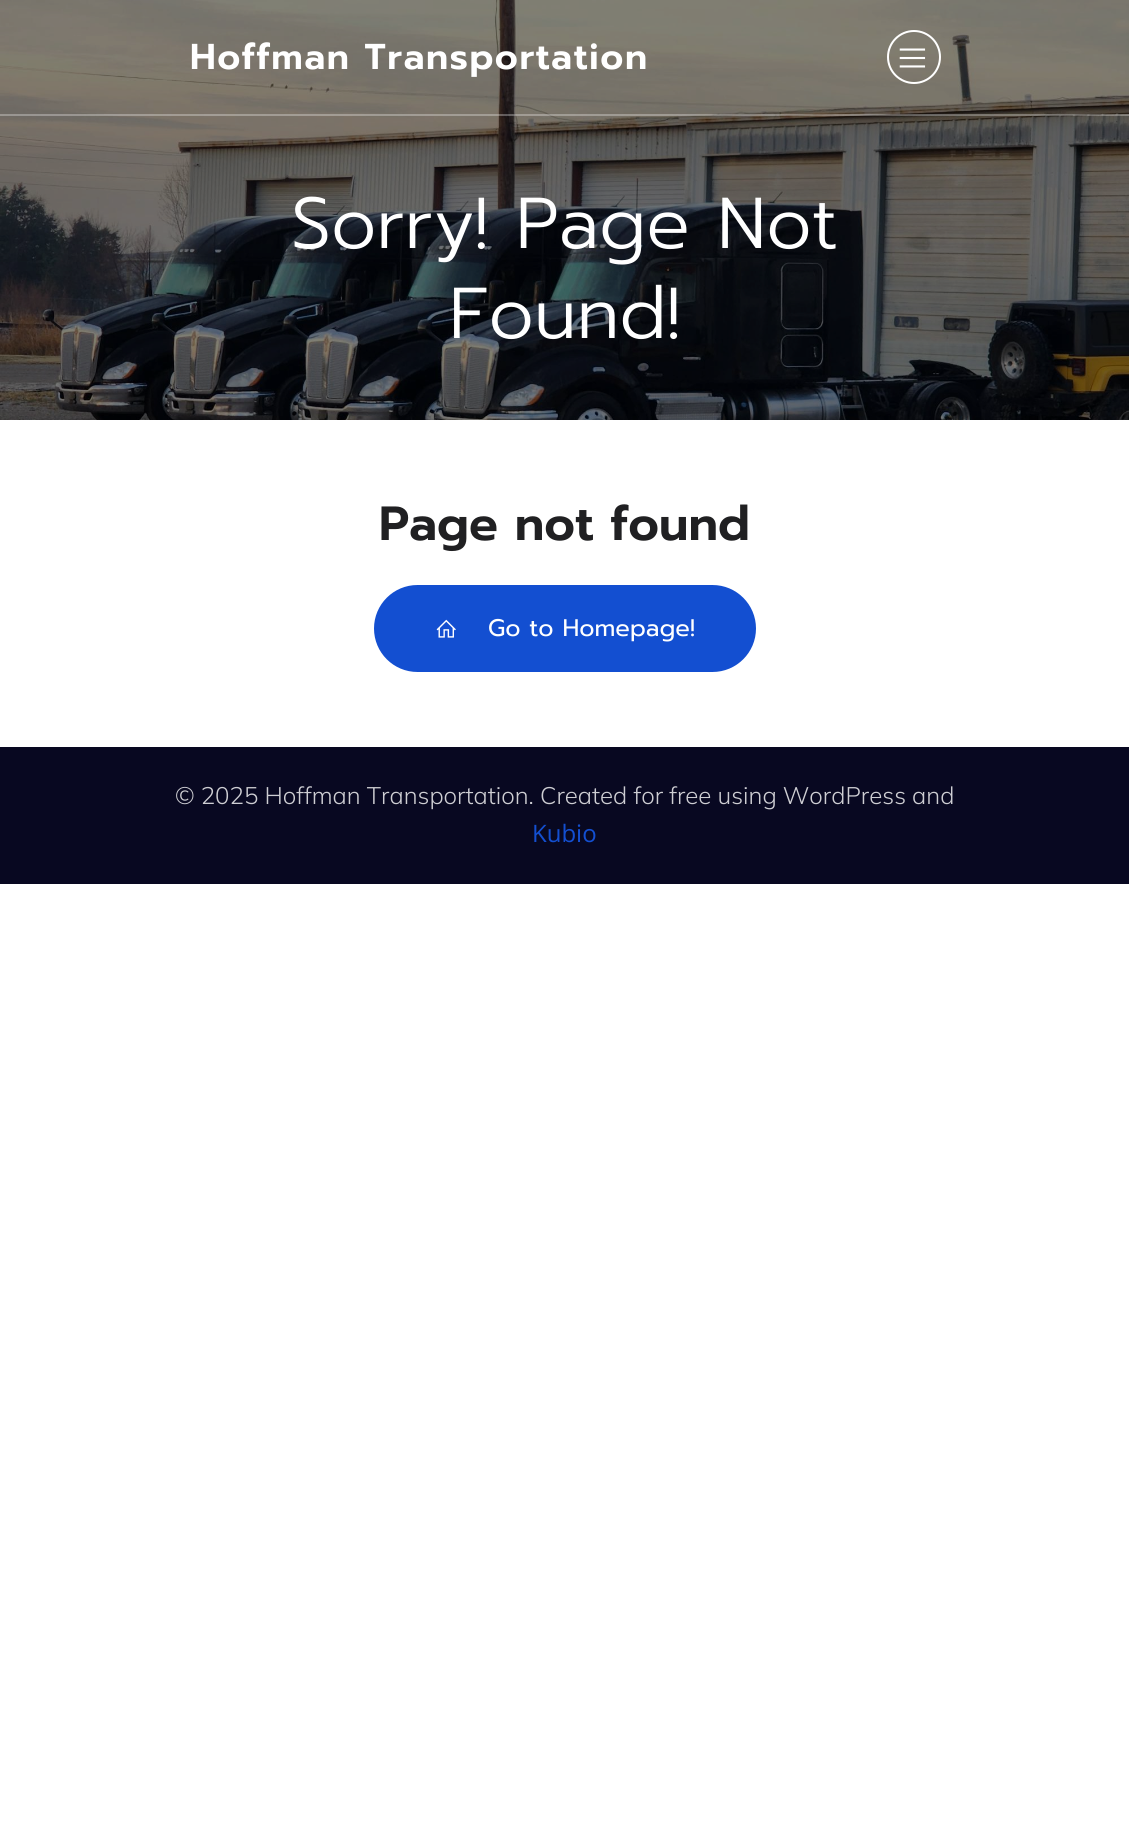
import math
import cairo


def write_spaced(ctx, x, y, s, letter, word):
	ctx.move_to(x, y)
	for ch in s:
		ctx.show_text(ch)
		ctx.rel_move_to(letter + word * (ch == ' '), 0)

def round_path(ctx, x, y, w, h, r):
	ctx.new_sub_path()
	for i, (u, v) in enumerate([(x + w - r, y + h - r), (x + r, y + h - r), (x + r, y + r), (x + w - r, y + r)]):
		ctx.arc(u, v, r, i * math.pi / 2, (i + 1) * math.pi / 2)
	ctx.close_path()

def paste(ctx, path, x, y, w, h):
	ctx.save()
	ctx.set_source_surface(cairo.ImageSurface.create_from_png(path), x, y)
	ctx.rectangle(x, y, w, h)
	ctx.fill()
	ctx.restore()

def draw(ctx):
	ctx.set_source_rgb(1, 1, 1)
	ctx.paint()
	paste(ctx, 'media/2.png', 0, 0, 1129, 420)
	ctx.set_source_rgba(1, 1, 1, 0.3)
	ctx.rectangle(0, 114, 1129, 2)
	ctx.fill()
	ctx.select_font_face('Prompt SemiBold')
	ctx.set_font_size(36)
	ctx.set_source_rgb(1, 1, 1)
	write_spaced(ctx, 190, 69, 'Hoffman Transportation', 1.5, 0)
	ctx.new_path()
	ctx.arc(914, 57, 26, 0, 2 * math.pi)
	ctx.stroke()
	paste(ctx, 'media/1.png', 899, 48, 27, 20)
	ctx.select_font_face('Prompt Light')
	ctx.set_font_size(72)
	ctx.move_to(291, 248)
	ctx.show_text('Sorry! Page Not')
	ctx.move_to(449, 338)
	ctx.show_text('Found!')
	ctx.select_font_face('Prompt SemiBold')
	ctx.set_font_size(48)
	ctx.set_source_rgb(0.125, 0.125, 0.133)
	ctx.move_to(379, 540)
	ctx.show_text('Page not found')
	ctx.set_source_rgb(0.078, 0.31, 0.82)
	round_path(ctx, 375, 586, 380, 85, 42.5)
	ctx.fill_preserve()
	ctx.stroke()
	paste(ctx, 'media/3.png', 436, 619, 20, 19)
	ctx.select_font_face('Prompt')
	ctx.set_font_size(24)
	ctx.set_source_rgb(1, 1, 1)
	ctx.move_to(488, 636)
	ctx.show_text('Go to Homepage!')
	ctx.set_source_rgb(0.035, 0.035, 0.129)
	ctx.rectangle(0, 747, 1129, 137)
	ctx.fill()
	ctx.select_font_face('Mulish Light')
	ctx.set_source_rgb(0.808, 0.808, 0.827)
	ctx.move_to(175, 804)
	ctx.show_text('© 2025 Hoffman Transportation. Created for free using WordPress and')
	ctx.select_font_face('Open Sans')
	ctx.set_source_rgb(0.078, 0.31, 0.82)
	ctx.move_to(532, 842)
	ctx.show_text('Kubio')


surface = cairo.ImageSurface(cairo.FORMAT_RGB24, 1129, 1827)
ctx = cairo.Context(surface)
options = cairo.FontOptions()
options.set_hint_metrics(cairo.HINT_METRICS_OFF)
options.set_hint_style(cairo.HINT_STYLE_NONE)
ctx.set_font_options(options)
ctx.set_miter_limit(4)
draw(ctx)
surface.write_to_png('image.png')
